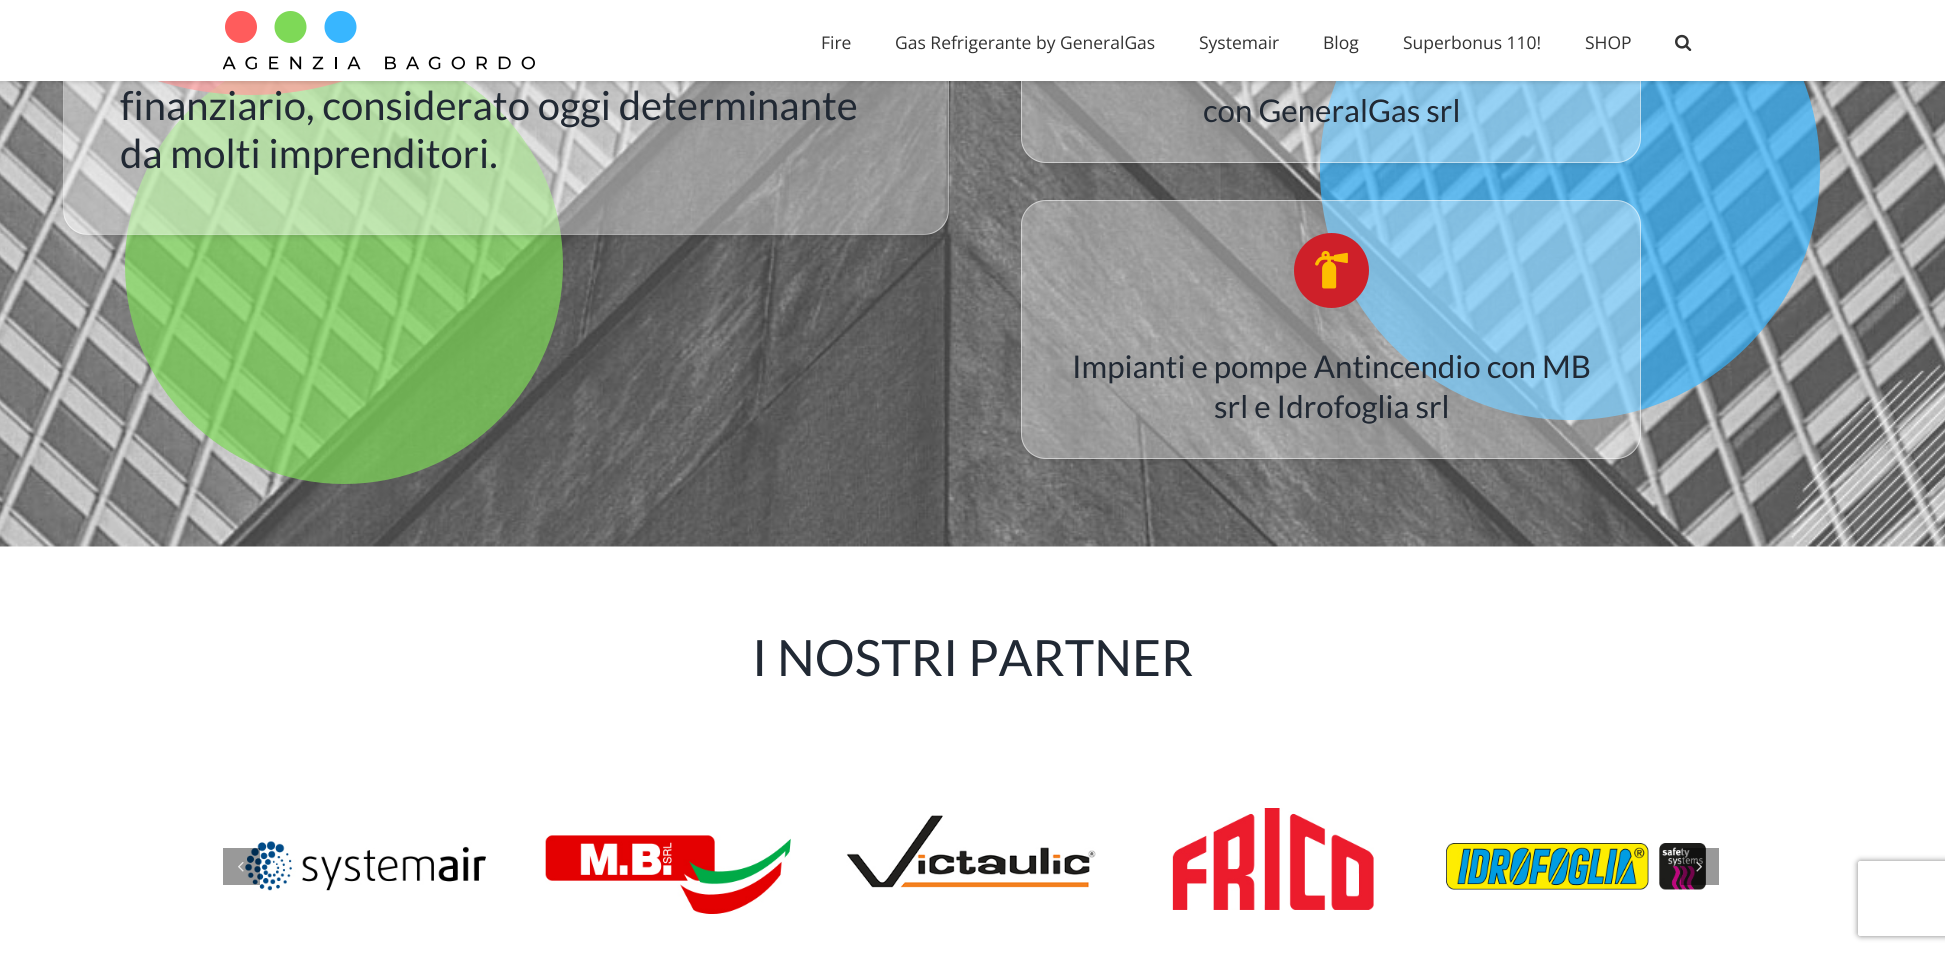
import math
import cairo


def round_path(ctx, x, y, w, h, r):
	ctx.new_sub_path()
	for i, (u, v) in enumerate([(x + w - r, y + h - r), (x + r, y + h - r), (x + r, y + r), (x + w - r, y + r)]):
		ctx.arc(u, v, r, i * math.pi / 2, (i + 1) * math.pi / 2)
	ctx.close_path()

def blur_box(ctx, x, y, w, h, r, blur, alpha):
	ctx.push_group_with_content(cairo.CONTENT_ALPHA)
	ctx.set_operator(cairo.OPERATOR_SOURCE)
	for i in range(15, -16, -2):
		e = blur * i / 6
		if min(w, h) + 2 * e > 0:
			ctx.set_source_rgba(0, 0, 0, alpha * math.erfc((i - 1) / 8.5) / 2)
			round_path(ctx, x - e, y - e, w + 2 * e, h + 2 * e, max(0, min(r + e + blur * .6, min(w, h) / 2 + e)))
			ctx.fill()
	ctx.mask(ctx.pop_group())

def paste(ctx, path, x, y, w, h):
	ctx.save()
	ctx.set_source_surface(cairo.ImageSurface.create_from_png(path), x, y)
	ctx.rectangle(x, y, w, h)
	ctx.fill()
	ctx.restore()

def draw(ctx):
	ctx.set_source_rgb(1, 1, 1)
	ctx.paint()
	paste(ctx, 'media/3.png', 0, 81, 1945, 466)
	ctx.set_source_rgba(0.494, 0.851, 0.341, 0.7)
	ctx.arc(344, 265, 219, 0, 2 * math.pi)
	ctx.fill()
	ctx.set_source_rgba(1, 0.361, 0.361, 0.7)
	round_path(ctx, -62, -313, 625, 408, 312.5)
	ctx.fill()
	ctx.set_source_rgba(0.22, 0.714, 1, 0.7)
	ctx.arc(1570, 170, 250, 0, 2 * math.pi)
	ctx.fill()
	ctx.save()
	ctx.set_fill_rule(cairo.FILL_RULE_EVEN_ODD)
	ctx.new_path()
	ctx.move_to(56, 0)
	ctx.line_to(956, 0)
	ctx.line_to(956, 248)
	ctx.line_to(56, 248)
	ctx.close_path()
	ctx.move_to(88, -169)
	ctx.line_to(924, -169)
	ctx.curve_to(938, -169, 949, -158, 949, -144)
	ctx.line_to(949, 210)
	ctx.curve_to(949, 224, 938, 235, 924, 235)
	ctx.line_to(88, 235)
	ctx.curve_to(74, 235, 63, 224, 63, 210)
	ctx.line_to(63, -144)
	ctx.curve_to(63, -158, 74, -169, 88, -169)
	ctx.close_path()
	ctx.clip()
	ctx.set_source_rgb(0, 0, 0)
	blur_box(ctx, 69, -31, 874, 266, 19, 4, 0.16)
	ctx.restore()
	ctx.save()
	round_path(ctx, 63, -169, 886, 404, 25)
	ctx.clip()
	gradient = cairo.LinearGradient(184, 354, 827, -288)
	gradient.add_color_stop_rgba(0, 1, 1, 1, 0.44)
	gradient.add_color_stop_rgba(1, 1, 1, 1, 0.3)
	ctx.set_source(gradient)
	ctx.rectangle(64, 81, 884, 153)
	ctx.fill()
	ctx.restore()
	round_path(ctx, 63.5, -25.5, 885, 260, 24.5)
	ctx.set_source_rgba(1, 1, 1, 0.5)
	ctx.set_line_width(1)
	ctx.stroke()
	ctx.save()
	ctx.set_fill_rule(cairo.FILL_RULE_EVEN_ODD)
	ctx.new_path()
	ctx.move_to(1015, 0)
	ctx.line_to(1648, 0)
	ctx.line_to(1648, 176)
	ctx.line_to(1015, 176)
	ctx.close_path()
	ctx.move_to(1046, -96)
	ctx.line_to(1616, -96)
	ctx.curve_to(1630, -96, 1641, -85, 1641, -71)
	ctx.line_to(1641, 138)
	ctx.curve_to(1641, 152, 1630, 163, 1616, 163)
	ctx.line_to(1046, 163)
	ctx.curve_to(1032, 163, 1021, 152, 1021, 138)
	ctx.line_to(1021, -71)
	ctx.curve_to(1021, -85, 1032, -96, 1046, -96)
	ctx.close_path()
	ctx.clip()
	ctx.set_source_rgb(0, 0, 0)
	blur_box(ctx, 1028, -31, 607, 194, 19, 4, 0.16)
	ctx.restore()
	ctx.set_source_rgba(1, 1, 1, 0.33)
	round_path(ctx, 1021, -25, 620, 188, 25)
	ctx.fill()
	round_path(ctx, 1021.5, -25.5, 619, 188, 24.5)
	ctx.set_source_rgba(1, 1, 1, 0.5)
	ctx.stroke()
	ctx.set_source_rgb(0, 0, 0)
	blur_box(ctx, 0, 1, 1945, 82, 0, 2, 0.12)
	ctx.set_source_rgb(1, 1, 1)
	ctx.rectangle(0, 0, 1945, 81)
	ctx.fill()
	paste(ctx, 'media/1.png', 223, 11, 312, 59)
	ctx.select_font_face('Open Sans')
	ctx.set_font_size(17.5)
	ctx.set_source_rgb(0.2, 0.2, 0.2)
	for x, y, s in [
		(821, 49, 'Fire'),
		(895, 49, 'Gas Refrigerante by GeneralGas'),
		(1199, 49, 'Systemair'),
		(1323, 49, 'Blog'),
		(1403, 49, 'Superbonus 110!'),
		(1585, 49, 'SHOP'),
	]:
		ctx.move_to(x, y)
		ctx.show_text(s)
	paste(ctx, 'media/2.png', 1675, 34, 17, 17)
	ctx.select_font_face('Lato')
	ctx.set_font_size(40)
	ctx.set_source_rgb(0.129, 0.161, 0.204)
	ctx.move_to(120, 120)
	ctx.show_text('finanziario, considerato oggi determinante')
	ctx.move_to(120, 168)
	ctx.show_text('da molti imprenditori.')
	ctx.set_font_size(31.25)
	ctx.move_to(1203, 122)
	ctx.show_text('con GeneralGas srl')
	ctx.save()
	ctx.set_fill_rule(cairo.FILL_RULE_EVEN_ODD)
	ctx.new_path()
	ctx.move_to(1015, 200)
	ctx.line_to(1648, 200)
	ctx.line_to(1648, 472)
	ctx.line_to(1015, 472)
	ctx.close_path()
	ctx.move_to(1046, 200)
	ctx.line_to(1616, 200)
	ctx.curve_to(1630, 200, 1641, 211, 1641, 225)
	ctx.line_to(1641, 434)
	ctx.curve_to(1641, 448, 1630, 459, 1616, 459)
	ctx.line_to(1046, 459)
	ctx.curve_to(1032, 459, 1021, 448, 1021, 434)
	ctx.line_to(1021, 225)
	ctx.curve_to(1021, 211, 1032, 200, 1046, 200)
	ctx.close_path()
	ctx.clip()
	ctx.set_source_rgb(0, 0, 0)
	blur_box(ctx, 1028, 213, 607, 246, 19, 4, 0.16)
	ctx.restore()
	ctx.set_source_rgba(1, 1, 1, 0.33)
	round_path(ctx, 1021, 200, 620, 259, 25)
	ctx.fill()
	round_path(ctx, 1021.5, 200.5, 619, 258, 24.5)
	ctx.set_source_rgba(1, 1, 1, 0.5)
	ctx.stroke()
	ctx.set_source_rgb(0.808, 0.125, 0.161)
	ctx.arc(1331.5, 270.5, 37.5, 0, 2 * math.pi)
	ctx.fill()
	paste(ctx, 'media/4.png', 1315, 250, 33, 39)
	ctx.set_source_rgb(0.129, 0.161, 0.204)
	ctx.move_to(1072, 378)
	ctx.show_text('Impianti e pompe Antincendio con MB')
	ctx.move_to(1214, 418)
	ctx.show_text('srl e Idrofoglia srl')
	ctx.set_font_size(50)
	ctx.move_to(752, 676)
	ctx.show_text('I NOSTRI PARTNER')
	paste(ctx, 'media/5.png', 245, 841, 241, 50)
	paste(ctx, 'media/6.png', 545, 835, 246, 79)
	paste(ctx, 'media/7.png', 846, 815, 250, 73)
	paste(ctx, 'media/8.png', 1172, 808, 202, 102)
	paste(ctx, 'media/9.png', 1446, 843, 260, 47)
	ctx.set_source_rgba(0, 0, 0, 0.4)
	ctx.rectangle(223, 848, 37, 37)
	ctx.fill()
	paste(ctx, 'media/10.png', 238, 862, 6, 10)
	ctx.rectangle(1681, 848, 38, 37)
	ctx.fill()
	paste(ctx, 'media/11.png', 1696, 861, 6, 11)
	ctx.save()
	ctx.set_fill_rule(cairo.FILL_RULE_EVEN_ODD)
	ctx.new_path()
	ctx.move_to(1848, 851)
	ctx.line_to(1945, 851)
	ctx.line_to(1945, 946)
	ctx.line_to(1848, 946)
	ctx.close_path()
	ctx.move_to(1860.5, 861)
	ctx.line_to(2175.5, 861)
	ctx.curve_to(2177, 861, 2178, 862, 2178, 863.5)
	ctx.line_to(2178, 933.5)
	ctx.curve_to(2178, 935, 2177, 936, 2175.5, 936)
	ctx.line_to(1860.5, 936)
	ctx.curve_to(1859, 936, 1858, 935, 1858, 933.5)
	ctx.line_to(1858, 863.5)
	ctx.curve_to(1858, 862, 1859, 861, 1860.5, 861)
	ctx.close_path()
	ctx.clip()
	ctx.set_source_rgb(0.502, 0.502, 0.502)
	blur_box(ctx, 1858, 861, 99, 75, 2.5, 3, 1)
	ctx.restore()


surface = cairo.ImageSurface(cairo.FORMAT_RGB24, 1945, 953)
ctx = cairo.Context(surface)
options = cairo.FontOptions()
options.set_hint_metrics(cairo.HINT_METRICS_OFF)
options.set_hint_style(cairo.HINT_STYLE_NONE)
ctx.set_font_options(options)
ctx.set_miter_limit(4)
draw(ctx)
surface.write_to_png('image.png')
